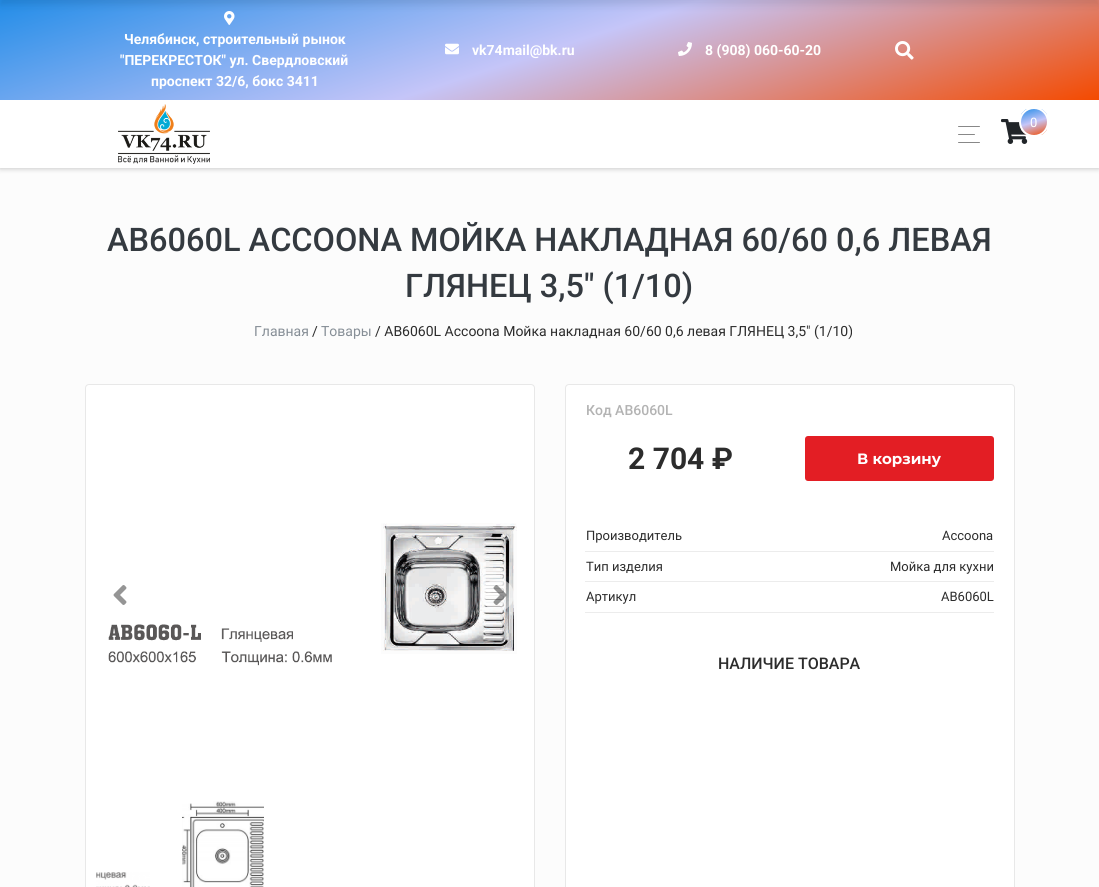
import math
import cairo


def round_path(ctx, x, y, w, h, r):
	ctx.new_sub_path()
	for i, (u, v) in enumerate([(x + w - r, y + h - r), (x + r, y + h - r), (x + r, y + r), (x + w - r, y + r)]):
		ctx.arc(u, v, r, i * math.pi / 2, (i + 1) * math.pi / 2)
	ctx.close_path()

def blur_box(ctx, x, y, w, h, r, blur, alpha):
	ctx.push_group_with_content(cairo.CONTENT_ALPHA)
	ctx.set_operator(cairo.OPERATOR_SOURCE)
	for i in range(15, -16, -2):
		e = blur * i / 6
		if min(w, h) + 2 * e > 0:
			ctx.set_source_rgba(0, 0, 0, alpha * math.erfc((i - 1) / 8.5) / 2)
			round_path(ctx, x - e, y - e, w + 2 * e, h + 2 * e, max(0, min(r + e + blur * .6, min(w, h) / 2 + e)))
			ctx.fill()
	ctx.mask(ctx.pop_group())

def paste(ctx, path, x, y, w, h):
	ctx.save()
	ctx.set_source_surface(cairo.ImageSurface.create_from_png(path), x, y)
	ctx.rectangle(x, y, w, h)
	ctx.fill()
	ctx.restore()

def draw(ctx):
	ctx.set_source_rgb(0.988, 0.988, 0.988)
	ctx.paint()
	ctx.set_source_rgb(0, 0, 0)
	blur_box(ctx, 0, 101, 1099, 68, 0, 2.5, 0.2)
	gradient = cairo.LinearGradient(482, -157, 617, 257)
	gradient.add_color_stop_rgba(0, 0.137, 0.553, 0.91, 1)
	gradient.add_color_stop_rgba(0.5, 0.773, 0.773, 0.973, 1)
	gradient.add_color_stop_rgba(1, 0.957, 0.29, 0, 1)
	ctx.set_source(gradient)
	ctx.rectangle(0, 0, 1099, 100)
	ctx.fill()
	paste(ctx, 'media/1.png', 224, 11, 11, 14)
	ctx.set_source_rgb(0, 0, 0)
	blur_box(ctx, 0, -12, 1099, 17, 0, 4, 0.1)
	ctx.select_font_face('Roboto', cairo.FONT_SLANT_NORMAL, cairo.FONT_WEIGHT_BOLD)
	ctx.set_font_size(14)
	ctx.set_source_rgb(1, 1, 1)
	for x, y, s in [
		(124, 44, 'Челябинск, строительный рынок'),
		(120, 65, '"ПЕРЕКРЕСТОК" ул. Свердловский'),
		(151, 86, 'проспект 32/6, бокс 3411'),
	]:
		ctx.move_to(x, y)
		ctx.show_text(s)
	paste(ctx, 'media/2.png', 445, 43, 14, 12)
	ctx.move_to(472, 55)
	ctx.show_text('vk74mail@bk.ru')
	paste(ctx, 'media/3.png', 678, 42, 14, 14)
	ctx.move_to(705, 55)
	ctx.show_text('8 (908) 060-60-20')
	paste(ctx, 'media/4.png', 895, 41, 19, 19)
	ctx.rectangle(0, 100, 1099, 68)
	ctx.fill()
	paste(ctx, 'media/5.png', 118, 104, 92, 60)
	ctx.set_source_rgb(0.533, 0.533, 0.533)
	round_path(ctx, 958, 126, 22, 1, 0.5)
	ctx.fill()
	round_path(ctx, 958, 134, 17, 1, 0.5)
	ctx.fill()
	round_path(ctx, 958, 142, 22, 1, 0.5)
	ctx.fill()
	paste(ctx, 'media/6.png', 1001, 119, 27, 25)
	ctx.save()
	round_path(ctx, 1019, 107, 30, 30, 15)
	ctx.clip()
	gradient = cairo.LinearGradient(1029, 106, 1039, 138)
	gradient.add_color_stop_rgba(0, 0.137, 0.553, 0.91, 1)
	gradient.add_color_stop_rgba(0.5, 0.773, 0.773, 0.973, 1)
	gradient.add_color_stop_rgba(1, 0.957, 0.29, 0, 1)
	ctx.set_source(gradient)
	ctx.rectangle(1021, 109, 26, 26)
	ctx.fill()
	ctx.restore()
	ctx.arc(1034, 122, 14, 0, 2 * math.pi)
	ctx.set_source_rgb(1, 1, 1)
	ctx.stroke()
	ctx.select_font_face('Roboto')
	ctx.set_font_size(13)
	ctx.move_to(1030, 127)
	ctx.show_text('0')
	ctx.select_font_face('Roboto Medium')
	ctx.set_font_size(32.5)
	ctx.set_source_rgb(0.204, 0.227, 0.251)
	ctx.move_to(107, 251)
	ctx.show_text('AB6060L АCCOONA МОЙКА НАКЛАДНАЯ 60/60 0,6 ЛЕВАЯ')
	ctx.move_to(405, 297)
	ctx.show_text('ГЛЯНЕЦ 3,5" (1/10)')
	ctx.select_font_face('Roboto')
	ctx.set_font_size(14)
	ctx.set_source_rgb(0.525, 0.557, 0.588)
	ctx.move_to(254, 336)
	ctx.show_text('Главная')
	ctx.set_source_rgb(0.173, 0.173, 0.173)
	ctx.move_to(312, 336)
	ctx.show_text('/')
	ctx.set_source_rgb(0.525, 0.557, 0.588)
	ctx.move_to(321, 336)
	ctx.show_text('Товары')
	ctx.set_source_rgb(0.173, 0.173, 0.173)
	ctx.move_to(375, 336)
	ctx.show_text('/ AB6060L Аccoona Мойка накладная 60/60 0,6 левая ГЛЯНЕЦ 3,5" (1/10)')
	ctx.set_source_rgb(1, 1, 1)
	round_path(ctx, 85.5, 384.5, 449, 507, 3.5)
	ctx.fill_preserve()
	ctx.set_source_rgb(0.91, 0.91, 0.91)
	ctx.set_line_width(1)
	ctx.stroke()
	paste(ctx, 'media/7.png', 108, 523, 409, 143)
	paste(ctx, 'media/8.png', 113, 585, 14, 20)
	ctx.set_source_rgba(1, 1, 1, 0.5)
	ctx.arc(498, 595, 16, 0, 2 * math.pi)
	ctx.fill()
	paste(ctx, 'media/9.png', 493, 585, 14, 20)
	paste(ctx, 'media/10.png', 96, 872, 54, 15)
	paste(ctx, 'media/11.png', 182, 801, 82, 86)
	ctx.set_source_rgb(1, 1, 1)
	round_path(ctx, 565.5, 384.5, 449, 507, 3.5)
	ctx.fill_preserve()
	ctx.set_source_rgb(0.91, 0.91, 0.91)
	ctx.stroke()
	ctx.select_font_face('Roboto Medium')
	ctx.set_source_rgb(0.702, 0.702, 0.702)
	ctx.move_to(586, 415)
	ctx.show_text('Код AB6060L')
	ctx.select_font_face('Roboto', cairo.FONT_SLANT_NORMAL, cairo.FONT_WEIGHT_BOLD)
	ctx.set_font_size(30)
	ctx.set_source_rgb(0.173, 0.173, 0.173)
	ctx.move_to(628, 469)
	ctx.show_text('2 704 ₽')
	ctx.set_source_rgb(0.89, 0.118, 0.141)
	round_path(ctx, 805, 436, 189, 45, 3)
	ctx.fill()
	ctx.select_font_face('Montserrat', cairo.FONT_SLANT_NORMAL, cairo.FONT_WEIGHT_BOLD)
	ctx.set_font_size(15)
	ctx.set_source_rgb(1, 1, 1)
	ctx.move_to(857, 464)
	ctx.show_text('В корзину')
	ctx.set_source_rgb(0.925, 0.925, 0.925)
	ctx.rectangle(585, 551, 409, 1)
	ctx.fill()
	ctx.select_font_face('Roboto')
	ctx.set_font_size(13)
	ctx.set_source_rgb(0.173, 0.173, 0.173)
	ctx.move_to(586, 540)
	ctx.show_text('Производитель')
	ctx.move_to(942, 540)
	ctx.show_text('Accoona')
	ctx.set_source_rgb(0.925, 0.925, 0.925)
	ctx.rectangle(585, 581, 409, 1)
	ctx.fill()
	ctx.set_source_rgb(0.173, 0.173, 0.173)
	ctx.move_to(586, 571)
	ctx.show_text('Тип изделия')
	ctx.move_to(890, 571)
	ctx.show_text('Мойка для кухни')
	ctx.set_source_rgb(0.925, 0.925, 0.925)
	ctx.rectangle(585, 612, 409, 1)
	ctx.fill()
	ctx.set_source_rgb(0.173, 0.173, 0.173)
	ctx.move_to(586, 601)
	ctx.show_text('Артикул')
	ctx.move_to(941, 601)
	ctx.show_text('AB6060L')
	ctx.select_font_face('Roboto Medium')
	ctx.set_font_size(16)
	ctx.move_to(718, 669)
	ctx.show_text('НАЛИЧИЕ ТОВАРА')


surface = cairo.ImageSurface(cairo.FORMAT_RGB24, 1099, 887)
ctx = cairo.Context(surface)
options = cairo.FontOptions()
options.set_hint_metrics(cairo.HINT_METRICS_OFF)
options.set_hint_style(cairo.HINT_STYLE_NONE)
ctx.set_font_options(options)
ctx.set_miter_limit(4)
draw(ctx)
surface.write_to_png('image.png')
